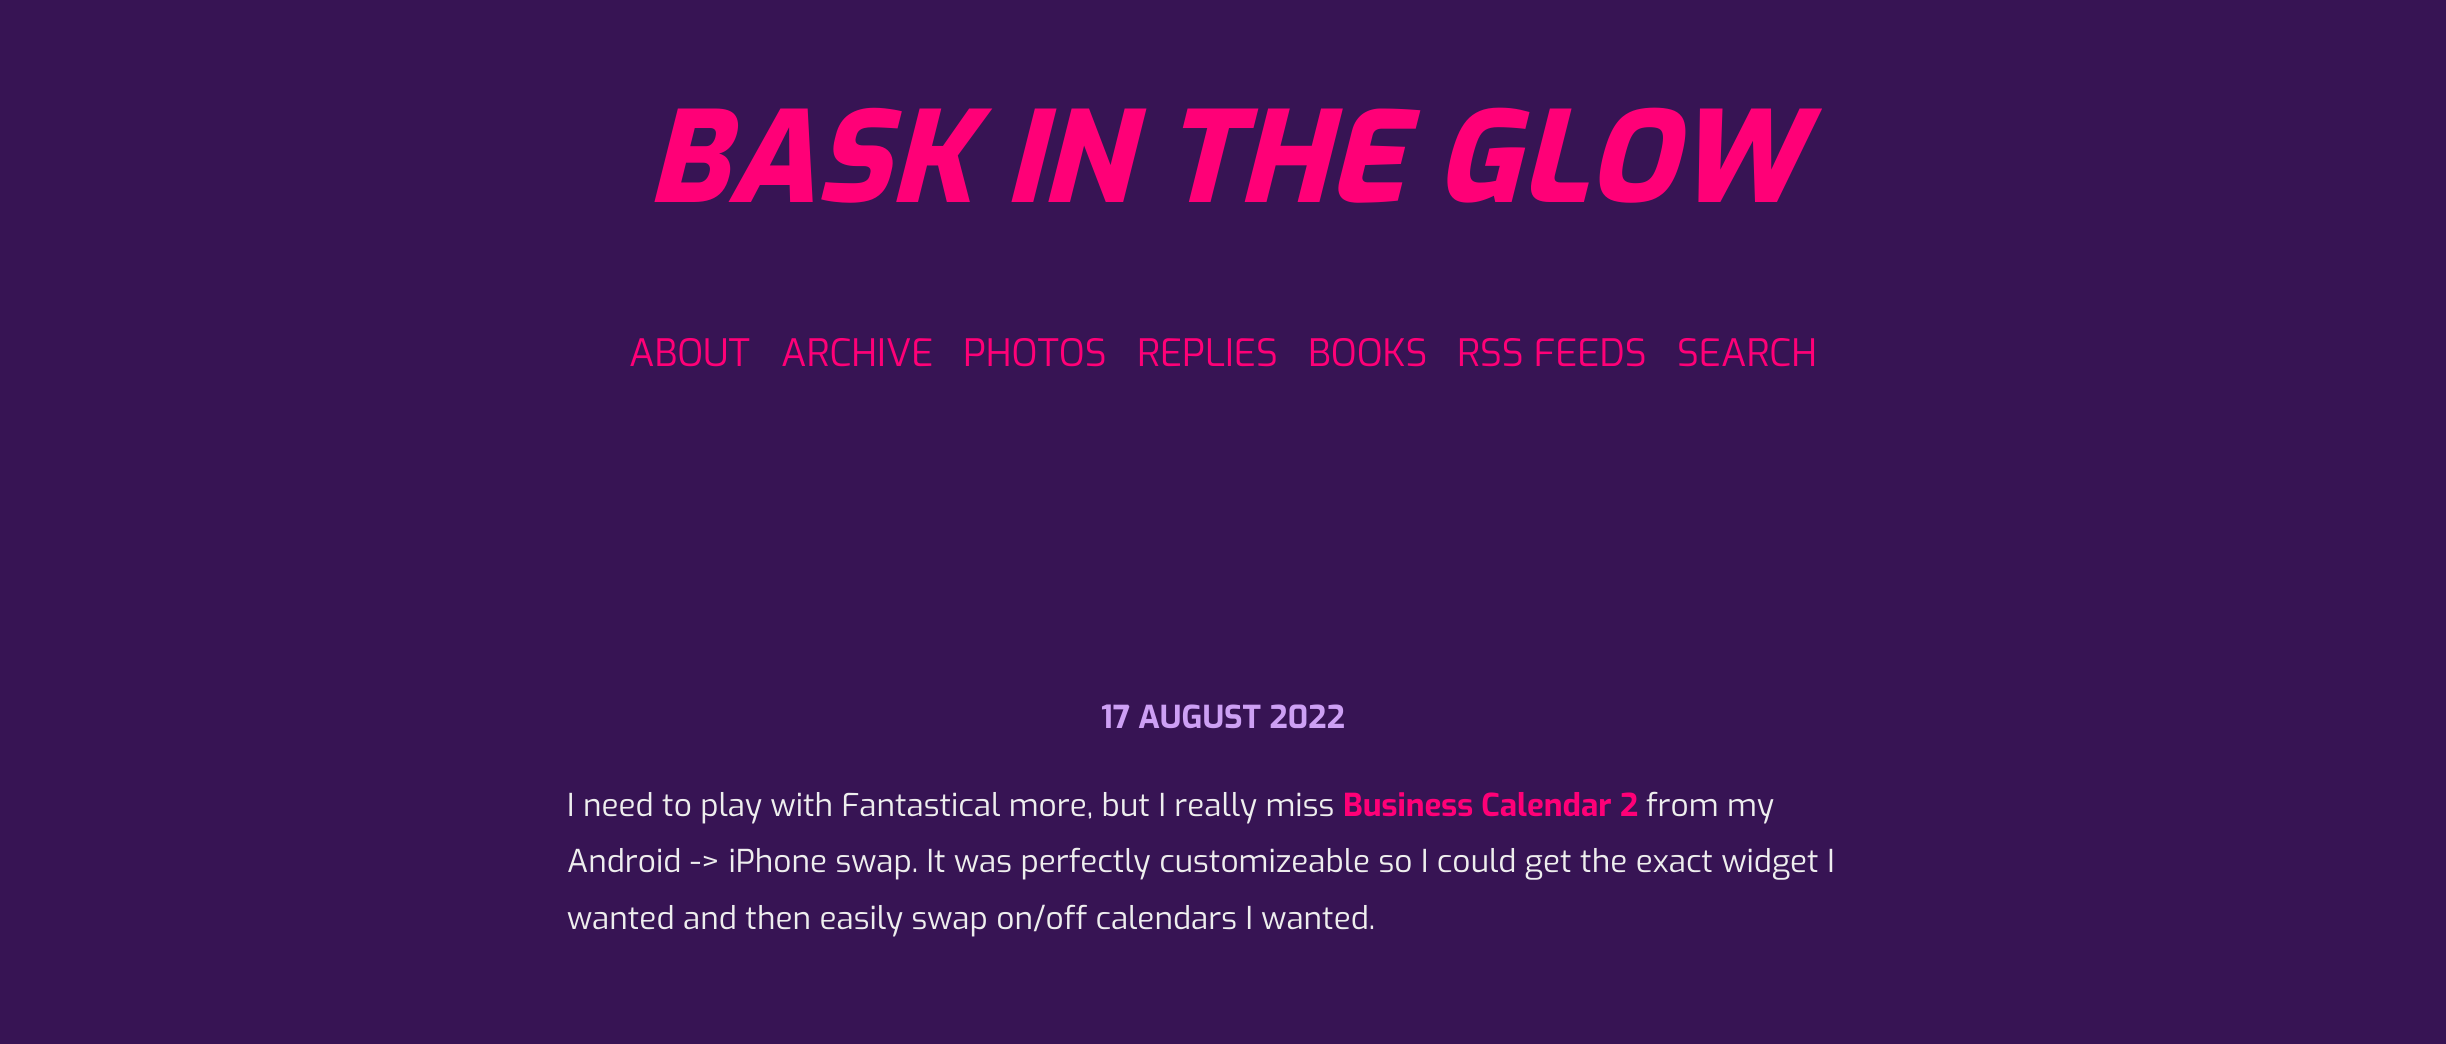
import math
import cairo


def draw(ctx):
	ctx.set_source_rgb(0.216, 0.082, 0.329)
	ctx.paint()
	ctx.select_font_face('Exo ExtraBold', cairo.FONT_SLANT_ITALIC)
	ctx.set_font_size(126)
	ctx.set_source_rgb(1, 0, 0.467)
	ctx.move_to(647, 202)
	ctx.show_text('BASK IN THE GLOW')
	ctx.select_font_face('Exo')
	ctx.set_font_size(37.75)
	for x, y, s in [
		(629, 366, 'ABOUT'),
		(781, 366, 'ARCHIVE'),
		(963, 366, 'PHOTOS'),
		(1137, 366, 'REPLIES'),
		(1308, 366, 'BOOKS'),
		(1457, 366, 'RSS FEEDS'),
		(1677, 366, 'SEARCH'),
	]:
		ctx.move_to(x, y)
		ctx.show_text(s)
	ctx.select_font_face('Exo', cairo.FONT_SLANT_NORMAL, cairo.FONT_WEIGHT_BOLD)
	ctx.set_font_size(31.5)
	ctx.set_source_rgb(0.804, 0.627, 0.957)
	ctx.move_to(1101, 728)
	ctx.show_text('17 AUGUST 2022')
	ctx.select_font_face('Exo')
	ctx.set_source_rgb(0.933, 0.933, 0.933)
	ctx.move_to(567, 816)
	ctx.show_text('I need to play with Fantastical more, but I really miss')
	ctx.select_font_face('Exo', cairo.FONT_SLANT_NORMAL, cairo.FONT_WEIGHT_BOLD)
	ctx.set_source_rgb(1, 0, 0.467)
	ctx.move_to(1343, 816)
	ctx.show_text('Business Calendar 2')
	ctx.select_font_face('Exo')
	ctx.set_source_rgb(0.933, 0.933, 0.933)
	for x, y, s in [
		(1646, 816, 'from my'),
		(567, 872, 'Android -> iPhone swap. It was perfectly customizeable so I could get the exact widget I'),
		(567, 929, 'wanted and then easily swap on/off calendars I wanted.'),
	]:
		ctx.move_to(x, y)
		ctx.show_text(s)


surface = cairo.ImageSurface(cairo.FORMAT_RGB24, 2446, 1044)
ctx = cairo.Context(surface)
options = cairo.FontOptions()
options.set_hint_metrics(cairo.HINT_METRICS_OFF)
options.set_hint_style(cairo.HINT_STYLE_NONE)
ctx.set_font_options(options)
ctx.set_miter_limit(4)
draw(ctx)
surface.write_to_png('image.png')
